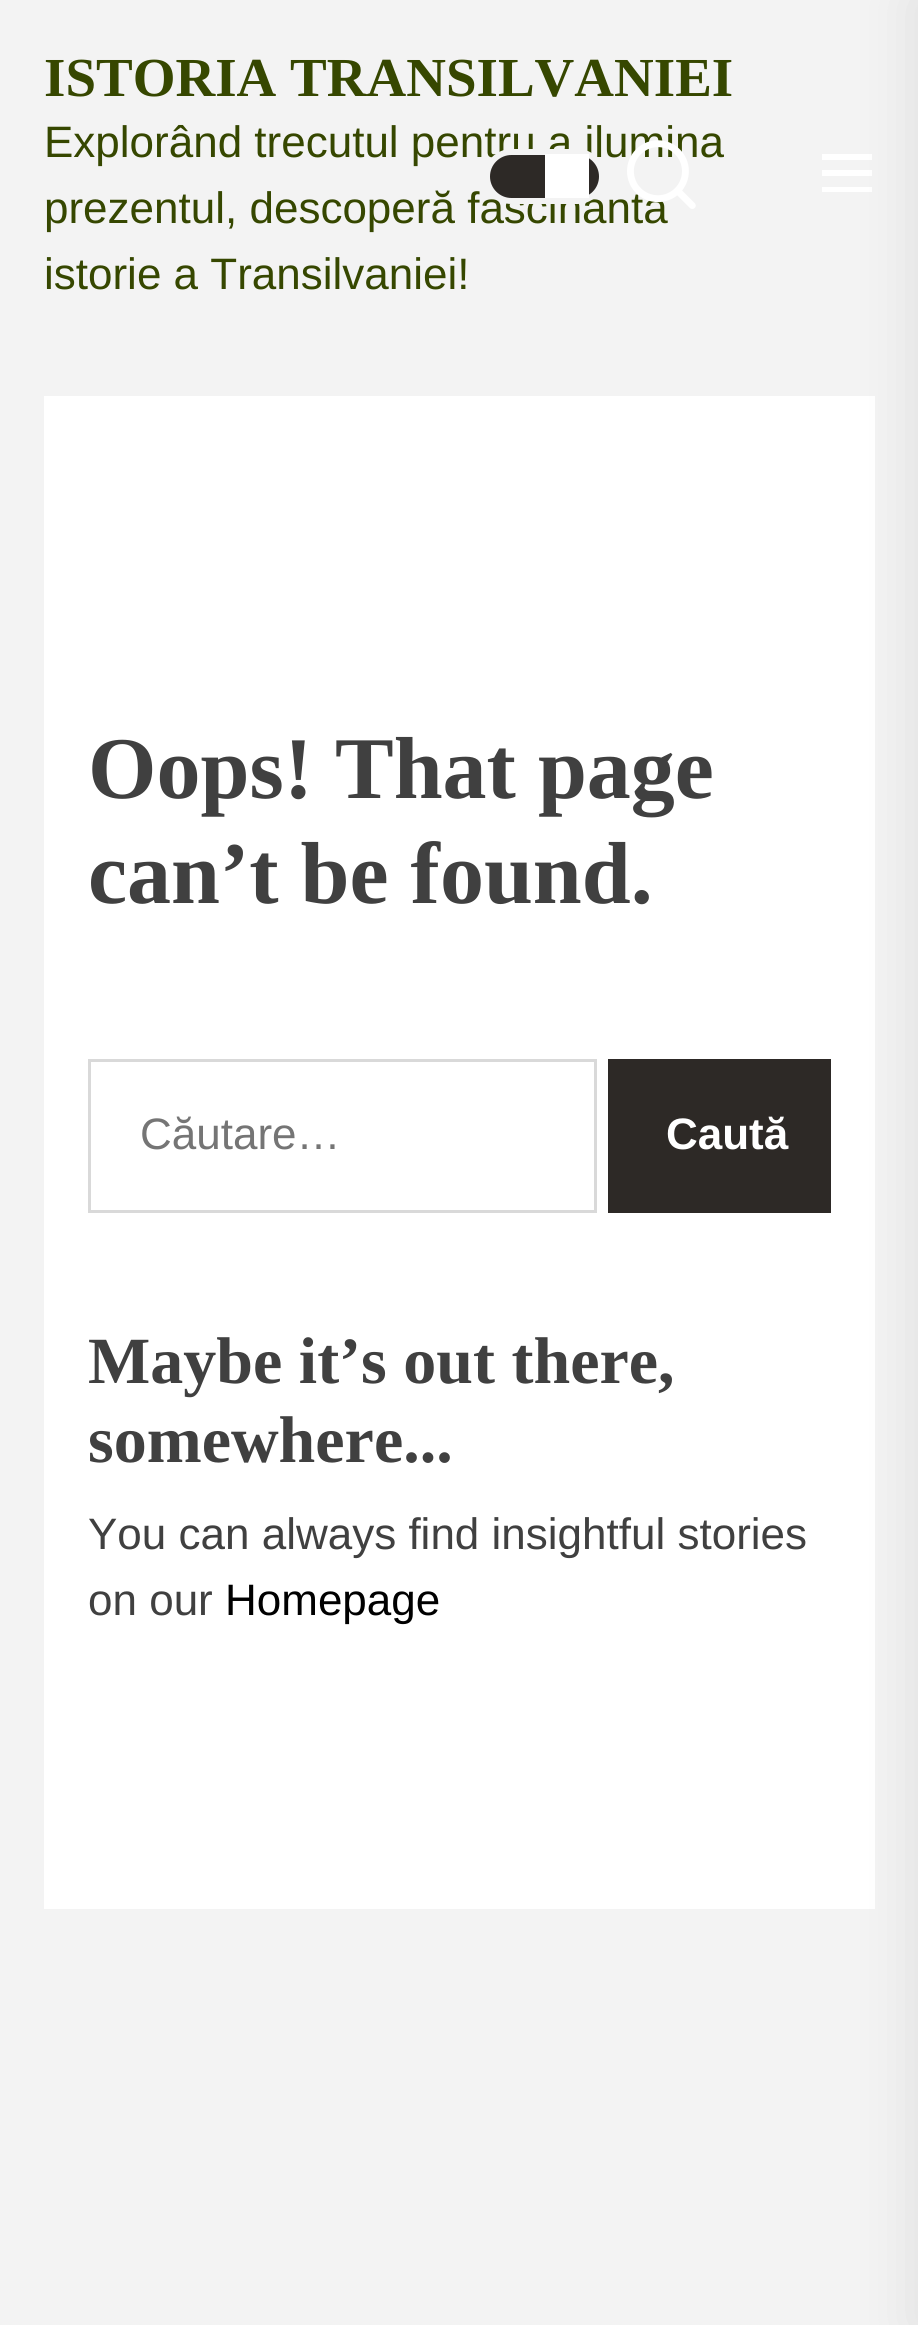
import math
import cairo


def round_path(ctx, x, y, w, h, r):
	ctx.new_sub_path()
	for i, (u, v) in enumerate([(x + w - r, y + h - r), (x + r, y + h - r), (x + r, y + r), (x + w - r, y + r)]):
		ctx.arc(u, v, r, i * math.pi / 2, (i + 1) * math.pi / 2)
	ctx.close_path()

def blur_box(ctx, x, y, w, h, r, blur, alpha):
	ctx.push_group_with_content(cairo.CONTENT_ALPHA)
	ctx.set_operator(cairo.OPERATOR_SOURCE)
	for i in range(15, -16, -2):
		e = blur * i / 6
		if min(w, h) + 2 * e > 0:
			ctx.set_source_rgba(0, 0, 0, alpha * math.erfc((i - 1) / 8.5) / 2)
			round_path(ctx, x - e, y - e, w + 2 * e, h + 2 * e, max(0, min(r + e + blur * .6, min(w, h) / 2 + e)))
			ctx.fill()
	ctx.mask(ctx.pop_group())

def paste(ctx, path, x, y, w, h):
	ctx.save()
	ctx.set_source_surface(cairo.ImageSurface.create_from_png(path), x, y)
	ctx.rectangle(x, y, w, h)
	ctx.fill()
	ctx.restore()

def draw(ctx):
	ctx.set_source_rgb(0.953, 0.953, 0.953)
	ctx.paint()
	ctx.select_font_face('Liberation Serif', cairo.FONT_SLANT_NORMAL, cairo.FONT_WEIGHT_BOLD)
	ctx.set_font_size(55)
	ctx.set_source_rgb(0.212, 0.278, 0)
	ctx.move_to(44, 96)
	ctx.show_text('ISTORIA TRANSILVANIEI')
	ctx.select_font_face('Liberation Sans')
	ctx.set_font_size(44)
	for x, y, s in [
		(44, 157, 'Explorând trecutul pentru a ilumina'),
		(44, 223, 'prezentul, descoperă fascinanta'),
		(44, 289, 'istorie a Transilvaniei!'),
	]:
		ctx.move_to(x, y)
		ctx.show_text(s)
	ctx.set_source_rgb(0.176, 0.161, 0.149)
	round_path(ctx, 487, 152, 115, 49, 24.5)
	ctx.fill_preserve()
	ctx.set_source_rgb(0.953, 0.953, 0.953)
	ctx.set_line_width(6)
	ctx.stroke()
	ctx.set_source_rgb(1, 1, 1)
	ctx.rectangle(545, 154, 44, 44)
	ctx.fill()
	paste(ctx, 'media/1.png', 627, 140, 69, 69)
	ctx.new_path()
	ctx.move_to(822, 154)
	ctx.line_to(822, 160)
	ctx.line_to(872, 160)
	ctx.line_to(872, 154)
	ctx.close_path()
	ctx.move_to(822, 176)
	ctx.line_to(872, 176)
	ctx.line_to(872, 170)
	ctx.line_to(822, 170)
	ctx.close_path()
	ctx.move_to(822, 192)
	ctx.line_to(872, 192)
	ctx.line_to(872, 187)
	ctx.line_to(822, 187)
	ctx.close_path()
	ctx.fill()
	ctx.rectangle(44, 396, 831, 1513)
	ctx.fill()
	ctx.set_source_rgb(0, 0, 0)
	blur_box(ctx, 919, 0, 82, 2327, 0, 27.5, 0.1)
	ctx.select_font_face('Liberation Serif', cairo.FONT_SLANT_NORMAL, cairo.FONT_WEIGHT_BOLD)
	ctx.set_font_size(88)
	ctx.set_source_rgb(0.251, 0.251, 0.251)
	ctx.move_to(88, 798)
	ctx.show_text('Oops! That page')
	ctx.move_to(88, 903)
	ctx.show_text('can’t be found.')
	ctx.rectangle(89.5, 1060.5, 506, 151)
	ctx.set_source_rgb(0.851, 0.851, 0.851)
	ctx.set_line_width(3)
	ctx.stroke()
	ctx.select_font_face('Liberation Sans')
	ctx.set_font_size(44)
	ctx.set_source_rgb(0.459, 0.459, 0.459)
	ctx.move_to(140, 1149)
	ctx.show_text('Căutare…')
	ctx.set_source_rgb(0.176, 0.161, 0.149)
	ctx.rectangle(608, 1059, 223, 154)
	ctx.fill()
	ctx.select_font_face('Liberation Sans', cairo.FONT_SLANT_NORMAL, cairo.FONT_WEIGHT_BOLD)
	ctx.set_source_rgb(1, 1, 1)
	ctx.move_to(666, 1149)
	ctx.show_text('Caută')
	ctx.select_font_face('Liberation Serif', cairo.FONT_SLANT_NORMAL, cairo.FONT_WEIGHT_BOLD)
	ctx.set_font_size(66)
	ctx.set_source_rgb(0.251, 0.251, 0.251)
	ctx.move_to(88, 1383)
	ctx.show_text('Maybe it’s out there,')
	ctx.move_to(88, 1462)
	ctx.show_text('somewhere...')
	ctx.select_font_face('Liberation Sans')
	ctx.set_font_size(44)
	ctx.move_to(88, 1549)
	ctx.show_text('You can always find insightful stories')
	ctx.move_to(88, 1615)
	ctx.show_text('on our')
	ctx.set_source_rgb(0, 0, 0)
	ctx.move_to(225, 1615)
	ctx.show_text('Homepage')


surface = cairo.ImageSurface(cairo.FORMAT_RGB24, 918, 2325)
ctx = cairo.Context(surface)
options = cairo.FontOptions()
options.set_hint_metrics(cairo.HINT_METRICS_OFF)
options.set_hint_style(cairo.HINT_STYLE_NONE)
ctx.set_font_options(options)
ctx.set_miter_limit(4)
draw(ctx)
surface.write_to_png('image.png')
